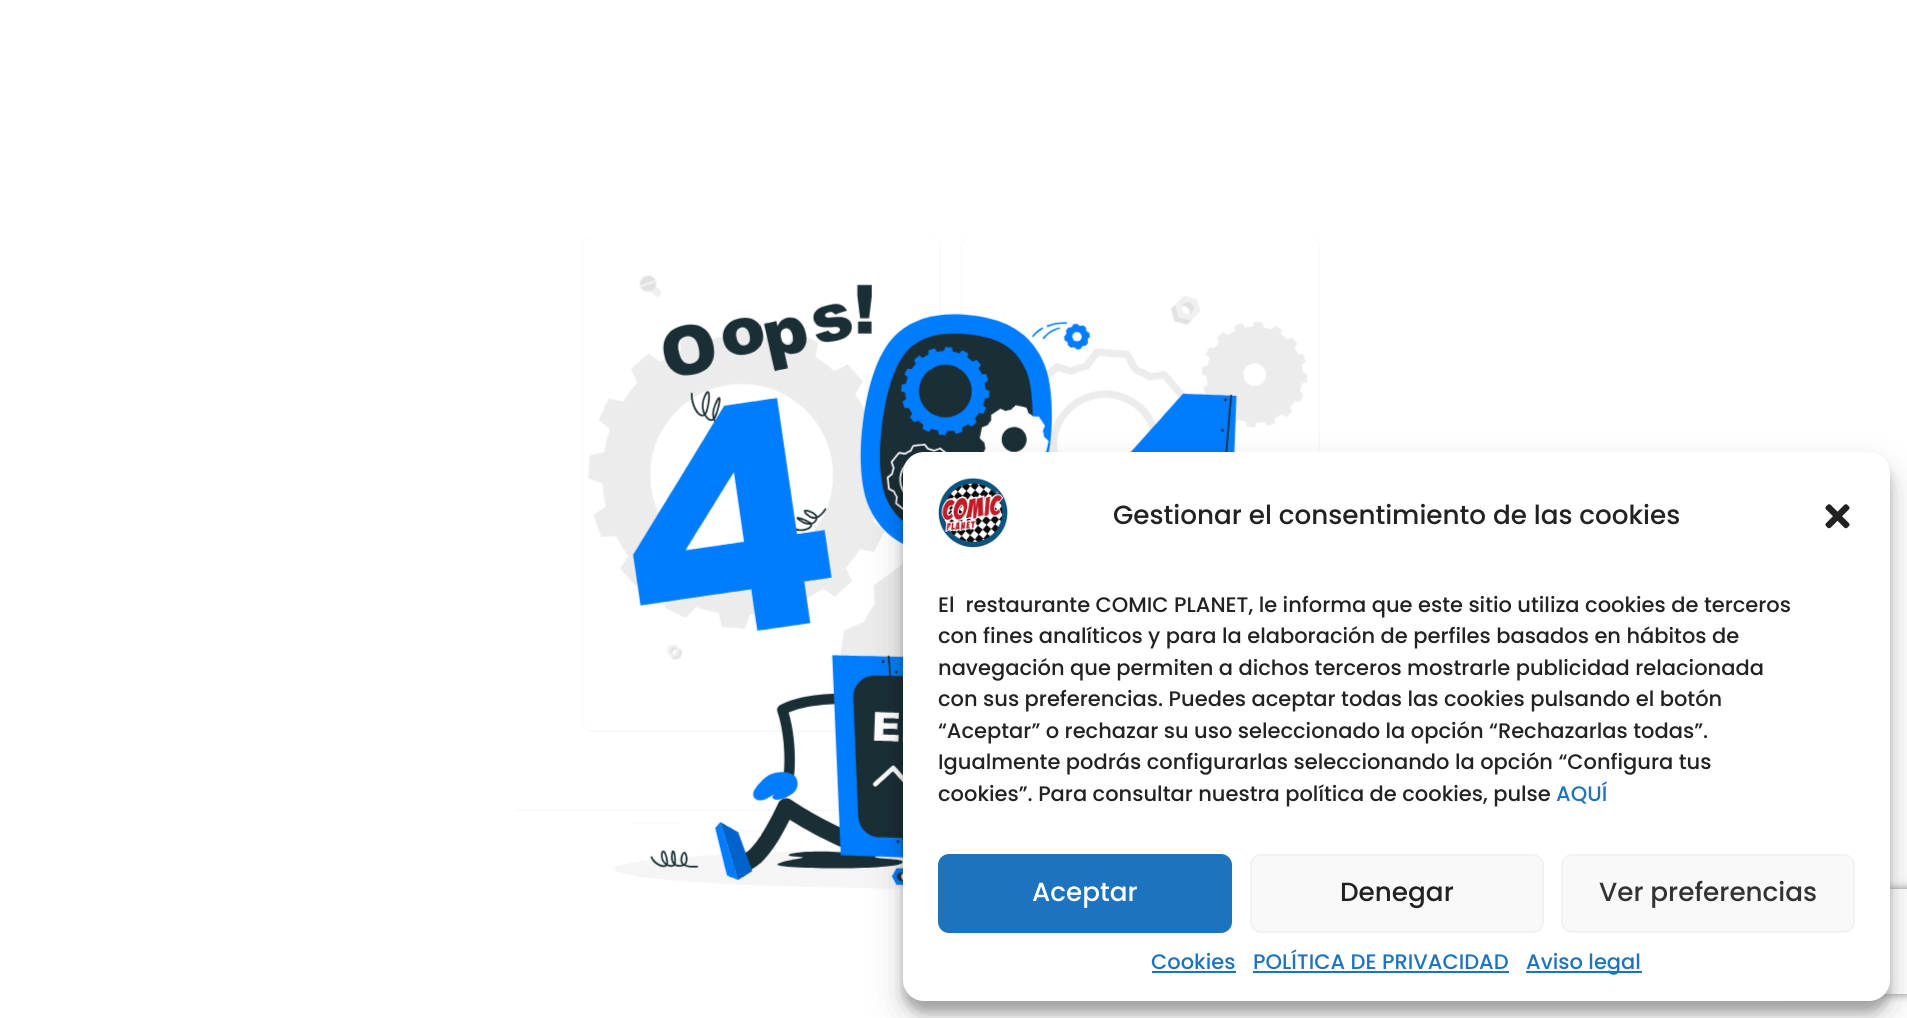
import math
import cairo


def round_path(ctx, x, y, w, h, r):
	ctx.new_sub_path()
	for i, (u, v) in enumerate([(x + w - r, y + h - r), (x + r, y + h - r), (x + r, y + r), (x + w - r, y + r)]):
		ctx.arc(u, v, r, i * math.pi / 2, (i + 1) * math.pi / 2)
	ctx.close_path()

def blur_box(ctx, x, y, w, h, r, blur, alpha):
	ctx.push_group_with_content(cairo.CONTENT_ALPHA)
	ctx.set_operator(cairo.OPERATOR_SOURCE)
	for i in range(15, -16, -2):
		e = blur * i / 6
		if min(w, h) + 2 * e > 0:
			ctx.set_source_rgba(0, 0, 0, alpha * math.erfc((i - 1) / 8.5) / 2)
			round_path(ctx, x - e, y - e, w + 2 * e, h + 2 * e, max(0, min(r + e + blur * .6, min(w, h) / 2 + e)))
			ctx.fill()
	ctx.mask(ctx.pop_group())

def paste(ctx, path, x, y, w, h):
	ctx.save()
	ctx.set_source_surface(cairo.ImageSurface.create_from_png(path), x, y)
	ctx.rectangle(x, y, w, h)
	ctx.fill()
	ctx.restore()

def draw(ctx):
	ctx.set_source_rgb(1, 1, 1)
	ctx.paint()
	paste(ctx, 'media/1.png', 516, 237, 804, 652)
	ctx.set_source_rgb(0, 0, 0)
	blur_box(ctx, 903, 462, 987, 550, 21, 5, 0.23)
	blur_box(ctx, 903, 469, 987, 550, 21, 17.5, 0.19)
	ctx.save()
	ctx.set_fill_rule(cairo.FILL_RULE_EVEN_ODD)
	ctx.new_path()
	ctx.move_to(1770, 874)
	ctx.line_to(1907, 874)
	ctx.line_to(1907, 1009)
	ctx.line_to(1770, 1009)
	ctx.close_path()
	ctx.move_to(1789, 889)
	ctx.line_to(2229, 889)
	ctx.curve_to(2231, 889, 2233, 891, 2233, 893)
	ctx.line_to(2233, 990)
	ctx.curve_to(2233, 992, 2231, 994, 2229, 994)
	ctx.line_to(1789, 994)
	ctx.curve_to(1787, 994, 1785, 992, 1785, 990)
	ctx.line_to(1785, 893)
	ctx.curve_to(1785, 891, 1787, 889, 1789, 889)
	ctx.close_path()
	ctx.clip()
	ctx.set_source_rgb(0.502, 0.502, 0.502)
	blur_box(ctx, 1785, 889, 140, 105, 4, 4.5, 1)
	ctx.restore()
	ctx.set_source_rgb(1, 1, 1)
	round_path(ctx, 903, 452, 987, 549, 21)
	ctx.fill()
	paste(ctx, 'media/2.png', 938, 477, 70, 71)
	ctx.select_font_face('Poppins Medium')
	ctx.set_font_size(26.25)
	ctx.set_source_rgb(0.133, 0.133, 0.133)
	ctx.move_to(1113, 524)
	ctx.show_text('Gestionar el consentimiento de las cookies')
	paste(ctx, 'media/3.png', 1825, 504, 25, 25)
	ctx.set_font_size(21)
	for x, y, s in [
		(938, 612, 'El  restaurante COMIC PLANET, le informa que este sitio utiliza cookies de terceros'),
		(938, 643, 'con fines analíticos y para la elaboración de perfiles basados en hábitos de'),
		(938, 675, 'navegación que permiten a dichos terceros mostrarle publicidad relacionada'),
		(938, 706, 'con sus preferencias. Puedes aceptar todas las cookies pulsando el botón'),
		(938, 738, '“Aceptar” o rechazar su uso seleccionado la opción “Rechazarlas todas”.'),
		(938, 769, 'Igualmente podrás configurarlas seleccionando la opción “Configura tus'),
		(938, 801, 'cookies”. Para consultar nuestra política de cookies, pulse'),
	]:
		ctx.move_to(x, y)
		ctx.show_text(s)
	ctx.set_source_rgb(0.118, 0.451, 0.745)
	ctx.move_to(1556, 801)
	ctx.show_text('AQUÍ')
	round_path(ctx, 939, 855, 292, 77, 10)
	ctx.fill_preserve()
	ctx.stroke()
	ctx.set_font_size(26.25)
	ctx.set_source_rgb(1, 1, 1)
	ctx.move_to(1032, 901)
	ctx.show_text('Aceptar')
	ctx.set_source_rgb(0.976, 0.976, 0.976)
	round_path(ctx, 1251, 855, 292, 77, 10)
	ctx.fill_preserve()
	ctx.set_source_rgb(0.949, 0.949, 0.949)
	ctx.stroke()
	ctx.set_source_rgb(0.133, 0.133, 0.133)
	ctx.move_to(1340, 901)
	ctx.show_text('Denegar')
	ctx.set_source_rgb(0.976, 0.976, 0.976)
	round_path(ctx, 1562, 855, 292, 77, 10)
	ctx.fill_preserve()
	ctx.set_source_rgb(0.949, 0.949, 0.949)
	ctx.stroke()
	ctx.set_source_rgb(0.2, 0.2, 0.2)
	ctx.move_to(1599, 901)
	ctx.show_text('Ver preferencias')
	ctx.set_font_size(21)
	ctx.set_source_rgb(0.118, 0.451, 0.745)
	ctx.move_to(1151, 969)
	ctx.show_text('Cookies')
	ctx.rectangle(1152, 971, 84, 2)
	ctx.fill()
	ctx.move_to(1253, 969)
	ctx.show_text('POLÍTICA DE PRIVACIDAD')
	ctx.rectangle(1253, 971, 256, 2)
	ctx.fill()
	ctx.rectangle(1526, 971, 116, 2)
	ctx.fill()
	ctx.move_to(1526, 969)
	ctx.show_text('Aviso legal')


surface = cairo.ImageSurface(cairo.FORMAT_RGB24, 1907, 1018)
ctx = cairo.Context(surface)
options = cairo.FontOptions()
options.set_hint_metrics(cairo.HINT_METRICS_OFF)
options.set_hint_style(cairo.HINT_STYLE_NONE)
ctx.set_font_options(options)
ctx.set_miter_limit(4)
draw(ctx)
surface.write_to_png('image.png')
